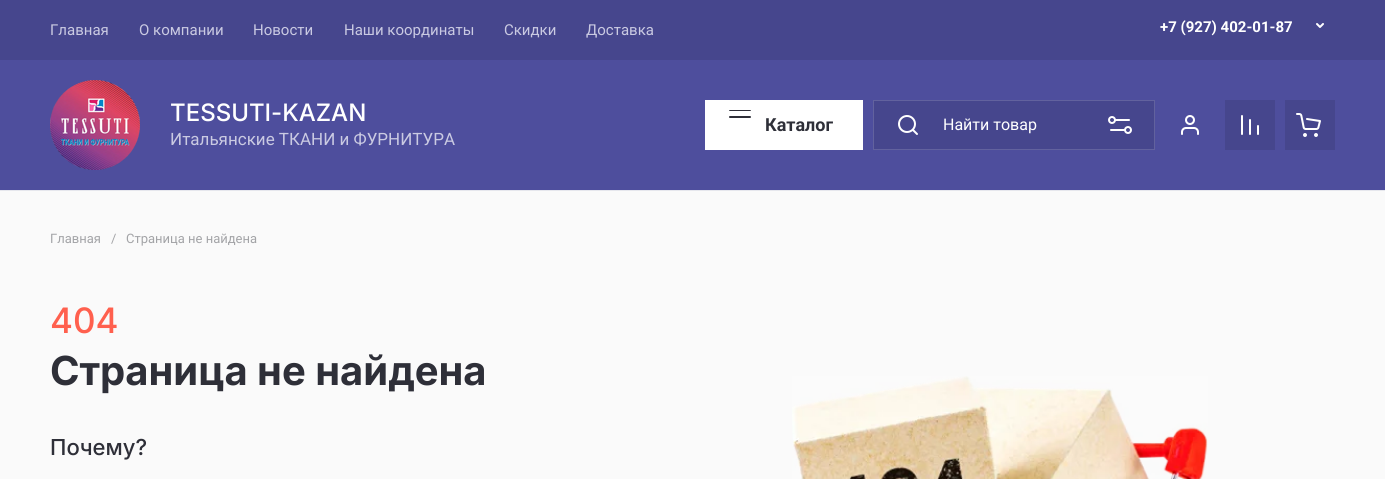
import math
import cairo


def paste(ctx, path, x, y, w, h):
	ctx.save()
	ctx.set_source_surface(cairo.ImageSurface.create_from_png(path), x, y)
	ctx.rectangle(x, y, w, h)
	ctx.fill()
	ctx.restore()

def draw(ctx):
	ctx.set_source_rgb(0.98, 0.98, 0.98)
	ctx.paint()
	ctx.set_source_rgb(0.902, 0.906, 0.929)
	ctx.rectangle(0, 190, 1385, 1)
	ctx.fill()
	ctx.set_source_rgb(0.306, 0.306, 0.616)
	ctx.rectangle(0, 60, 1385, 130)
	ctx.fill()
	ctx.set_source_rgb(0.275, 0.275, 0.553)
	ctx.rectangle(0, 0, 1385, 60)
	ctx.fill()
	ctx.select_font_face('Roboto')
	ctx.set_font_size(15)
	ctx.set_source_rgb(0.792, 0.792, 0.886)
	for x, y, s in [
		(50, 35, 'Главная'),
		(139, 35, 'О компании'),
		(253, 35, 'Новости'),
		(344, 35, 'Наши координаты'),
		(504, 35, 'Скидки'),
		(586, 35, 'Доставка'),
	]:
		ctx.move_to(x, y)
		ctx.show_text(s)
	ctx.select_font_face('Roboto', cairo.FONT_SLANT_NORMAL, cairo.FONT_WEIGHT_BOLD)
	ctx.set_source_rgb(1, 1, 1)
	ctx.move_to(1160, 32)
	ctx.show_text('+7 (927) 402-01-87')
	paste(ctx, 'media/1.png', 1316, 23, 8, 5)
	paste(ctx, 'media/2.png', 50, 80, 90, 90)
	ctx.select_font_face('Inter Medium')
	ctx.set_font_size(24)
	ctx.move_to(170, 121)
	ctx.show_text('TESSUTI-KAZAN')
	ctx.select_font_face('Roboto')
	ctx.set_font_size(17)
	ctx.set_source_rgb(0.792, 0.792, 0.886)
	ctx.move_to(170, 145)
	ctx.show_text('Итальянские ТКАНИ и ФУРНИТУРА')
	ctx.set_source_rgb(1, 1, 1)
	ctx.rectangle(705, 100, 158, 50)
	ctx.fill()
	paste(ctx, 'media/3.png', 729, 110, 22, 8)
	ctx.select_font_face('Roboto', cairo.FONT_SLANT_NORMAL, cairo.FONT_WEIGHT_BOLD)
	ctx.set_font_size(18)
	ctx.set_source_rgb(0.18, 0.184, 0.22)
	ctx.move_to(765, 131)
	ctx.show_text('Каталог')
	ctx.set_source_rgb(0.275, 0.275, 0.553)
	ctx.rectangle(873.5, 100.5, 281, 49)
	ctx.fill_preserve()
	ctx.set_source_rgb(0.384, 0.384, 0.62)
	ctx.set_line_width(1)
	ctx.stroke()
	paste(ctx, 'media/4.png', 898, 115, 20, 20)
	ctx.select_font_face('Roboto')
	ctx.set_font_size(16)
	ctx.set_source_rgb(1, 1, 1)
	ctx.move_to(943, 130)
	ctx.show_text('Найти товар')
	paste(ctx, 'media/5.png', 1108, 116, 24, 18)
	paste(ctx, 'media/6.png', 1181, 115, 18, 20)
	ctx.set_source_rgb(0.275, 0.275, 0.553)
	ctx.rectangle(1225, 100, 50, 50)
	ctx.fill()
	paste(ctx, 'media/7.png', 1241, 115, 18, 20)
	ctx.rectangle(1285, 100, 50, 50)
	ctx.fill()
	paste(ctx, 'media/8.png', 1296, 113, 25, 24)
	ctx.set_font_size(13)
	ctx.set_source_rgb(0.639, 0.643, 0.655)
	for x, y, s in [
		(50, 243, 'Главная'),
		(111, 243, '/'),
		(126, 243, 'Страница не найдена'),
	]:
		ctx.move_to(x, y)
		ctx.show_text(s)
	ctx.select_font_face('Inter Medium')
	ctx.set_font_size(35)
	ctx.set_source_rgb(1, 0.376, 0.306)
	ctx.move_to(50, 333)
	ctx.show_text('404')
	ctx.select_font_face('Inter', cairo.FONT_SLANT_NORMAL, cairo.FONT_WEIGHT_BOLD)
	ctx.set_font_size(40)
	ctx.set_source_rgb(0.18, 0.184, 0.22)
	ctx.move_to(50, 385)
	ctx.show_text('Страница не найдена')
	ctx.select_font_face('Inter Medium')
	ctx.set_font_size(22)
	ctx.move_to(50, 455)
	ctx.show_text('Почему?')
	paste(ctx, 'media/9.png', 792, 376, 416, 103)


surface = cairo.ImageSurface(cairo.FORMAT_RGB24, 1385, 479)
ctx = cairo.Context(surface)
options = cairo.FontOptions()
options.set_hint_metrics(cairo.HINT_METRICS_OFF)
options.set_hint_style(cairo.HINT_STYLE_NONE)
ctx.set_font_options(options)
ctx.set_miter_limit(4)
draw(ctx)
surface.write_to_png('image.png')
